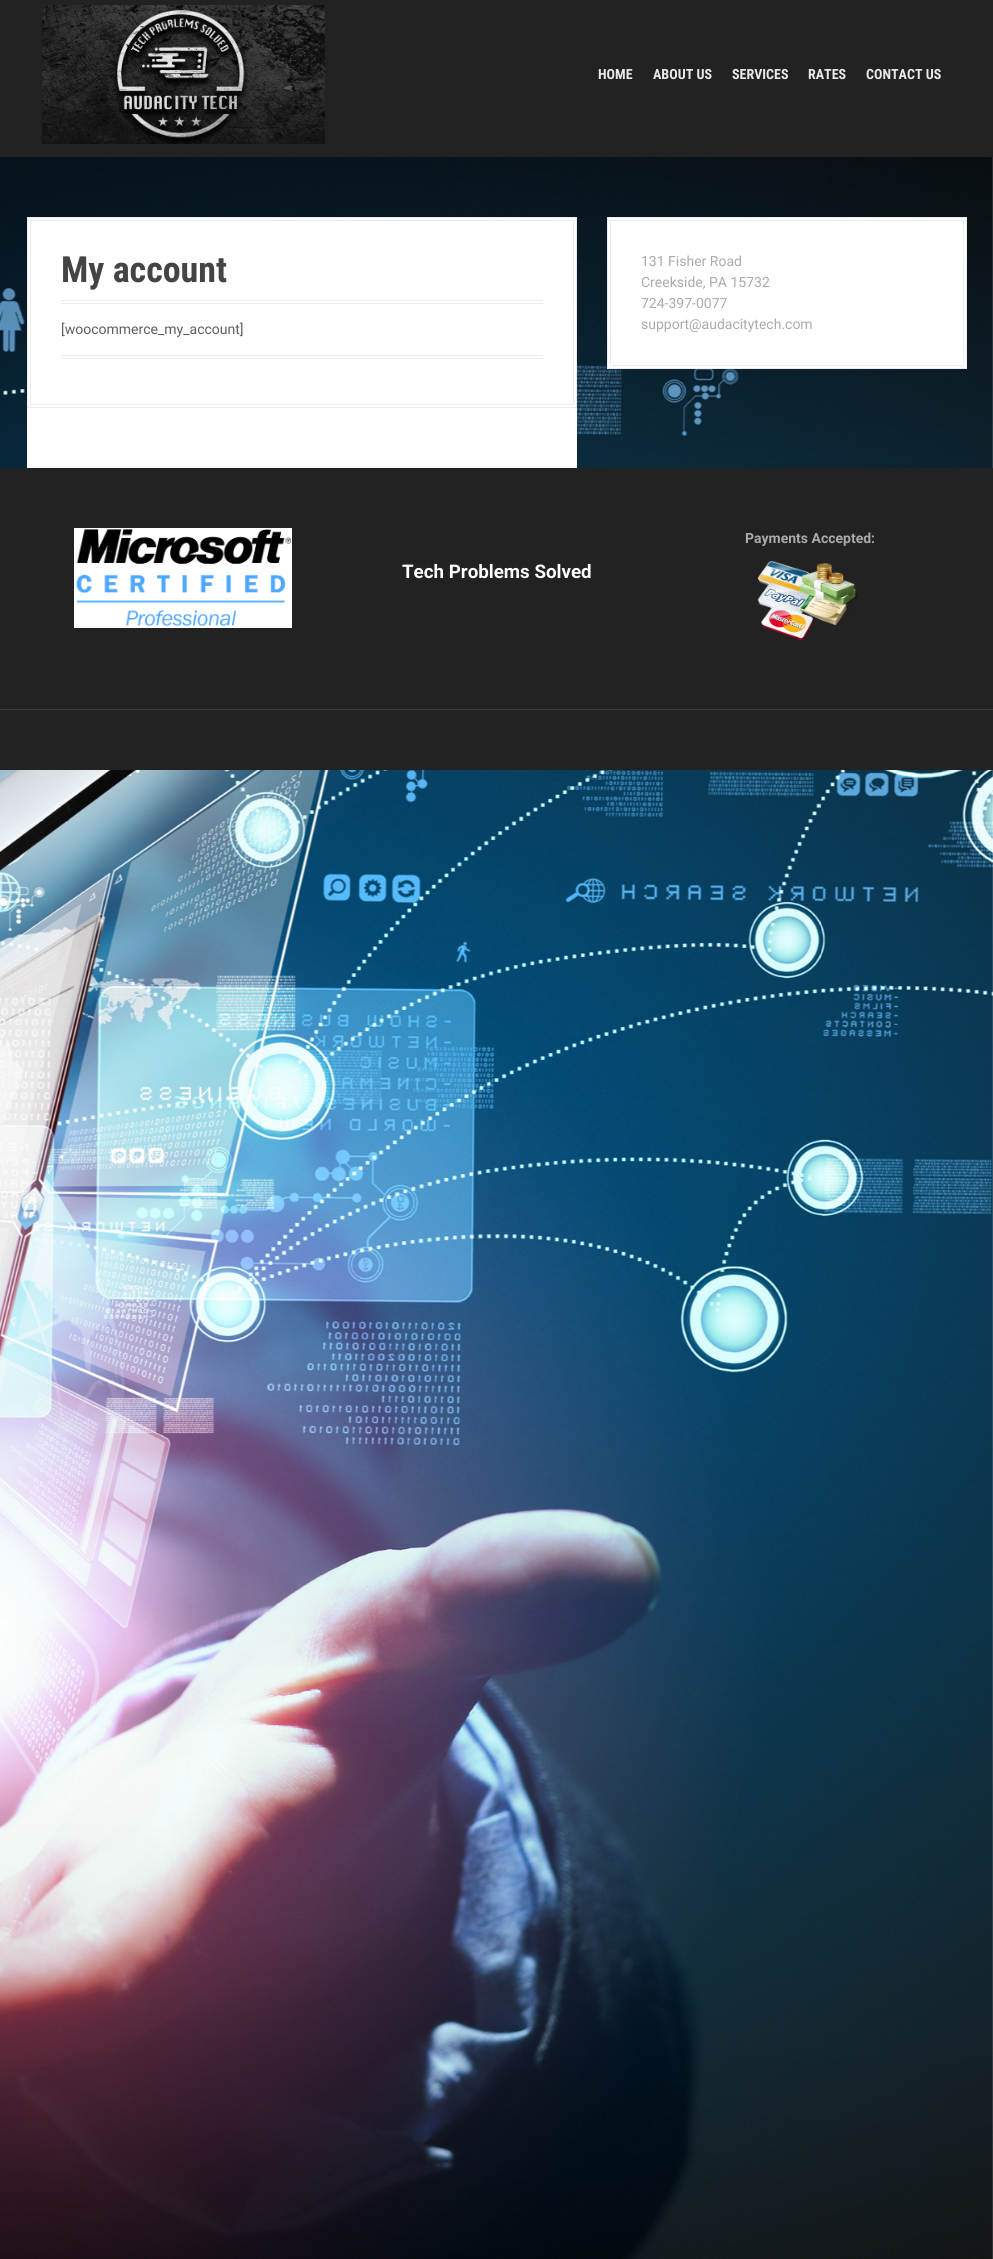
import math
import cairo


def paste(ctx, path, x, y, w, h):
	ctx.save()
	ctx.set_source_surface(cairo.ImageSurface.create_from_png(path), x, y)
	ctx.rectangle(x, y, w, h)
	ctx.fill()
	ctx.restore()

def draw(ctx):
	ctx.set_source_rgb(1, 1, 1)
	ctx.paint()
	paste(ctx, 'media/1.png', 0, 157, 993, 2102)
	ctx.set_source_rgb(0.133, 0.133, 0.133)
	ctx.rectangle(0, 0, 993, 157)
	ctx.fill()
	paste(ctx, 'media/2.png', 42, 5, 283, 139)
	ctx.select_font_face('Roboto Condensed', cairo.FONT_SLANT_NORMAL, cairo.FONT_WEIGHT_BOLD)
	ctx.set_font_size(14)
	ctx.set_source_rgb(0.914, 0.914, 0.914)
	for x, y, s in [
		(598, 79, 'HOME'),
		(653, 79, 'ABOUT US'),
		(732, 79, 'SERVICES'),
		(808, 79, 'RATES'),
		(866, 79, 'CONTACT US'),
	]:
		ctx.move_to(x, y)
		ctx.show_text(s)
	ctx.set_source_rgb(1, 1, 1)
	ctx.rectangle(27, 218, 550, 250)
	ctx.fill()
	ctx.rectangle(27.5, 217.5, 549, 190)
	ctx.set_source_rgb(0.922, 0.922, 0.922)
	ctx.set_line_width(1)
	ctx.stroke()
	ctx.rectangle(30.5, 220.5, 543, 184)
	ctx.stroke()
	ctx.rectangle(61, 300, 482, 1)
	ctx.fill()
	ctx.rectangle(61, 303, 482, 1)
	ctx.fill()
	ctx.set_font_size(36)
	ctx.set_source_rgb(0.267, 0.267, 0.267)
	ctx.move_to(61, 282)
	ctx.show_text('My account')
	ctx.select_font_face('Roboto')
	ctx.set_font_size(14)
	ctx.set_source_rgb(0.369, 0.369, 0.369)
	ctx.move_to(61, 334)
	ctx.show_text('[woocommerce_my_account]')
	ctx.set_source_rgb(0.922, 0.922, 0.922)
	ctx.rectangle(61, 355, 482, 1)
	ctx.fill()
	ctx.rectangle(61, 358, 482, 1)
	ctx.fill()
	ctx.set_source_rgb(1, 1, 1)
	ctx.rectangle(607.5, 217.5, 359, 151)
	ctx.fill_preserve()
	ctx.set_source_rgb(0.922, 0.922, 0.922)
	ctx.stroke()
	ctx.rectangle(610.5, 220.5, 353, 145)
	ctx.stroke()
	ctx.set_source_rgb(0.667, 0.667, 0.667)
	for x, y, s in [
		(641, 266, '131 Fisher Road'),
		(641, 287, 'Creekside, PA 15732'),
		(641, 308, '724-397-0077'),
		(641, 329, 'support@audacitytech.com'),
	]:
		ctx.move_to(x, y)
		ctx.show_text(s)
	ctx.set_source_rgb(0.133, 0.133, 0.133)
	ctx.rectangle(0, 468, 993, 241)
	ctx.fill()
	paste(ctx, 'media/3.png', 74, 528, 218, 100)
	ctx.select_font_face('Roboto', cairo.FONT_SLANT_NORMAL, cairo.FONT_WEIGHT_BOLD)
	ctx.set_source_rgb(0.667, 0.667, 0.667)
	ctx.move_to(745, 543)
	ctx.show_text('Payments Accepted:')
	paste(ctx, 'media/4.png', 757, 561, 101, 80)
	ctx.set_font_size(18.75)
	ctx.set_source_rgb(1, 1, 1)
	ctx.move_to(402, 578)
	ctx.show_text('Tech Problems Solved')
	ctx.set_source_rgb(0.133, 0.133, 0.133)
	ctx.rectangle(0, 710, 993, 60)
	ctx.fill()
	ctx.set_source_rgb(0.227, 0.227, 0.227)
	ctx.rectangle(0, 709, 993, 1)
	ctx.fill()


surface = cairo.ImageSurface(cairo.FORMAT_RGB24, 993, 2259)
ctx = cairo.Context(surface)
options = cairo.FontOptions()
options.set_hint_metrics(cairo.HINT_METRICS_OFF)
options.set_hint_style(cairo.HINT_STYLE_NONE)
ctx.set_font_options(options)
ctx.set_miter_limit(4)
draw(ctx)
surface.write_to_png('image.png')
